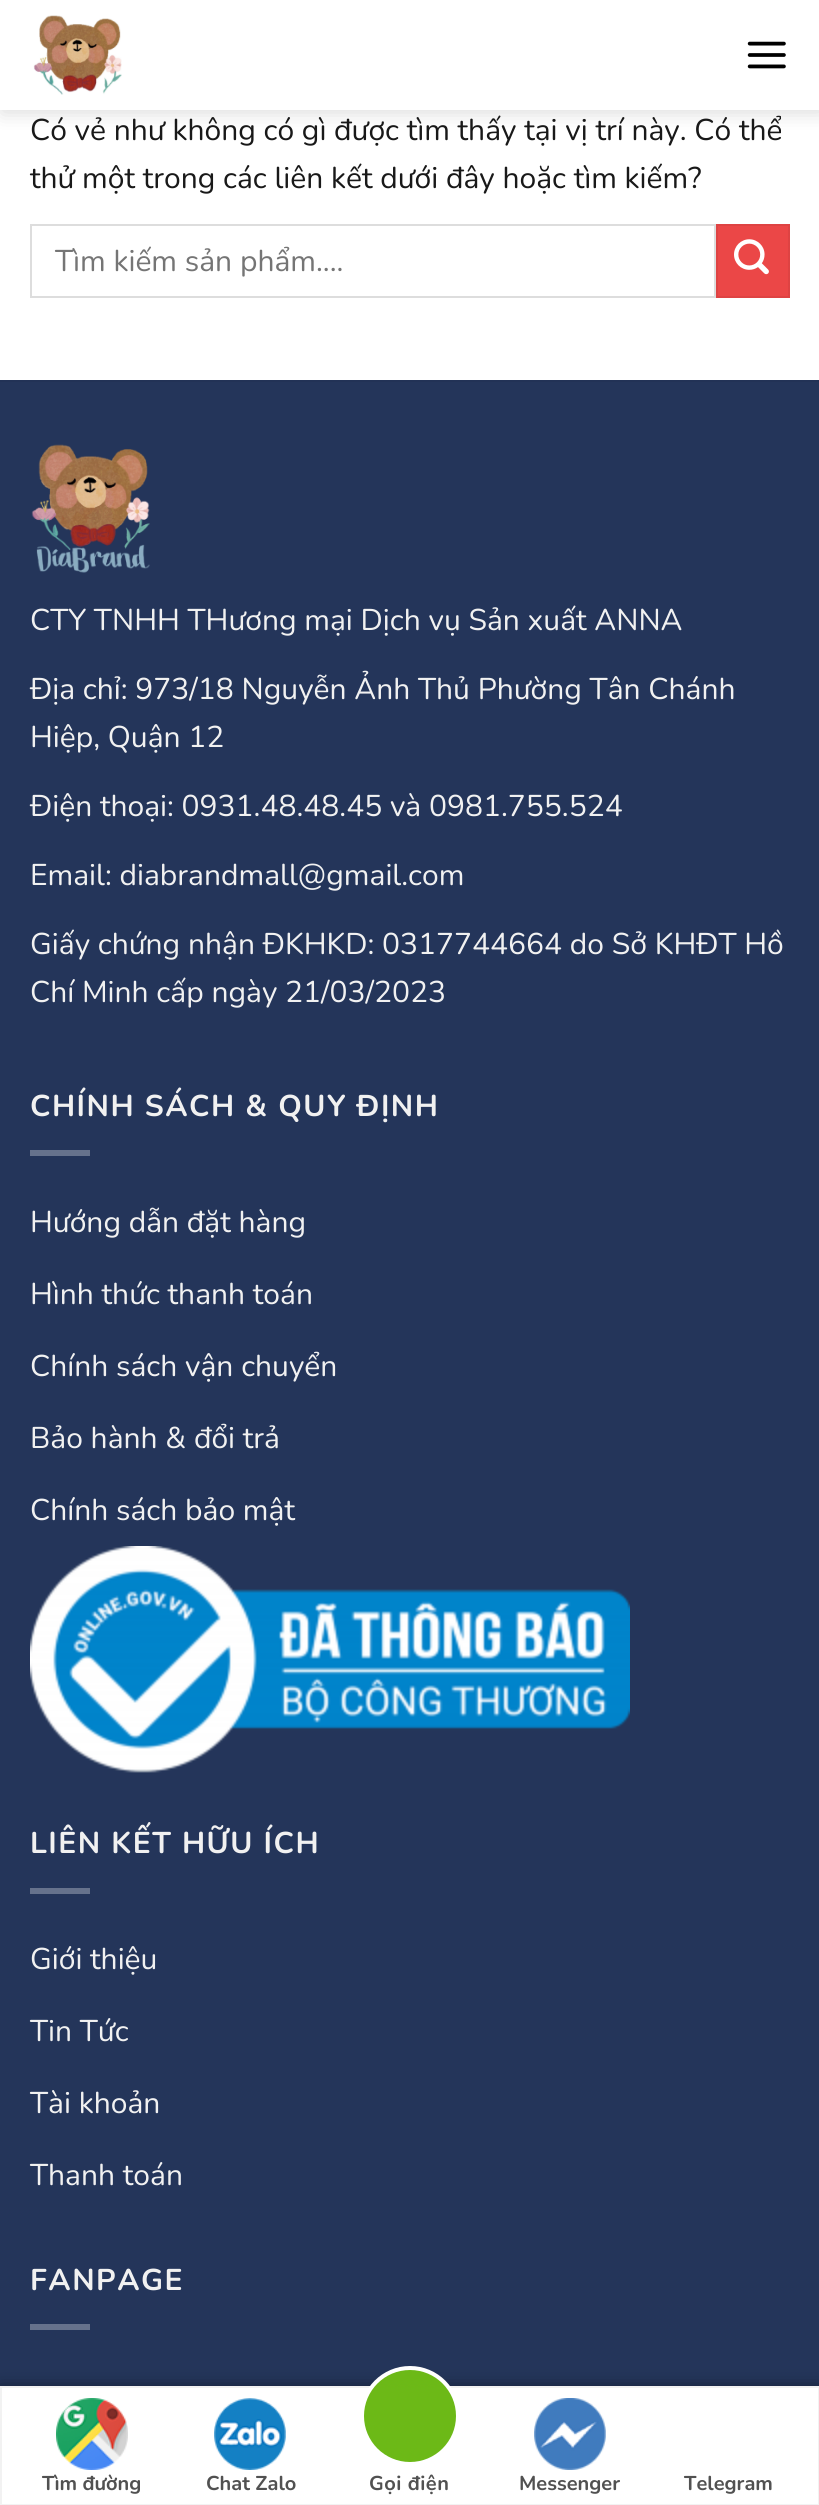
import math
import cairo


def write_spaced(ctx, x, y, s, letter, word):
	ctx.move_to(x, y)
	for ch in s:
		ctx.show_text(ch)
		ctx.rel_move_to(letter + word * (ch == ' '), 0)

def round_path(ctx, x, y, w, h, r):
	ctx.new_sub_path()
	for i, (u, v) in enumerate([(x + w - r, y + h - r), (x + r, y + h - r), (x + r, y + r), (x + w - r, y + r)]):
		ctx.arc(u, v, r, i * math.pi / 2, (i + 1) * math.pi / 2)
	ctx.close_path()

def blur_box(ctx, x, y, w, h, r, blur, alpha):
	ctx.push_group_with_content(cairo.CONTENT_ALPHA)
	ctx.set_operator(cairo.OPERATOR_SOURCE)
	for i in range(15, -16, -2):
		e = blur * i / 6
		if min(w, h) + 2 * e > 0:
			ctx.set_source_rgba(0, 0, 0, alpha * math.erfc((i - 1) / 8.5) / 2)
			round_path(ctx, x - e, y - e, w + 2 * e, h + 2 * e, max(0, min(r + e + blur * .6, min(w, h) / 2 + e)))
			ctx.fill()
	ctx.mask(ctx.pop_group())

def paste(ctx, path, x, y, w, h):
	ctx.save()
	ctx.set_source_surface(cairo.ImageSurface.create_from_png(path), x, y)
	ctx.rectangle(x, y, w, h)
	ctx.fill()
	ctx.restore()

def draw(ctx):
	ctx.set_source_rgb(1, 1, 1)
	ctx.paint()
	ctx.set_source_rgb(0, 0, 0)
	blur_box(ctx, 2, 2, 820, 110, 0, 10, 0.15)
	ctx.set_source_rgb(1, 1, 1)
	ctx.rectangle(0, 0, 819, 110)
	ctx.fill()
	paste(ctx, 'media/1.png', 33, 15, 89, 80)
	paste(ctx, 'media/2.png', 747, 41, 39, 28)
	ctx.select_font_face('Nunito')
	ctx.set_font_size(30)
	ctx.set_source_rgb(0.098, 0.098, 0.098)
	ctx.move_to(30, 140)
	ctx.show_text('Có vẻ như không có gì được tìm thấy tại vị trí này. Có thể')
	ctx.move_to(30, 188)
	ctx.show_text('thử một trong các liên kết dưới đây hoặc tìm kiếm?')
	ctx.rectangle(31, 225, 684, 72)
	ctx.set_source_rgb(0.867, 0.867, 0.867)
	ctx.stroke()
	ctx.set_source_rgb(0.459, 0.459, 0.459)
	ctx.move_to(55, 271)
	ctx.show_text('Tìm kiếm sản phẩm....')
	ctx.set_source_rgb(0.918, 0.278, 0.278)
	ctx.rectangle(717, 225, 72, 72)
	ctx.fill_preserve()
	ctx.set_source_rgb(0.871, 0.263, 0.263)
	ctx.stroke()
	paste(ctx, 'media/3.png', 734, 239, 35, 36)
	ctx.set_source_rgb(0.141, 0.208, 0.353)
	ctx.rectangle(0, 382, 819, 2004)
	ctx.fill()
	ctx.set_source_rgb(0.133, 0.196, 0.337)
	ctx.rectangle(0, 380, 819, 2)
	ctx.fill()
	paste(ctx, 'media/4.png', 31, 444, 119, 129)
	ctx.set_source_rgb(0.945, 0.945, 0.945)
	for x, y, s in [
		(30, 630, 'CTY TNHH THương mại Dịch vụ Sản xuất ANNA'),
		(30, 699, 'Địa chỉ: 973/18 Nguyễn Ảnh Thủ Phường Tân Chánh'),
		(30, 747, 'Hiệp, Quận 12'),
		(30, 816, 'Điện thoại: 0931.48.48.45 và 0981.755.524'),
		(30, 885, 'Email: diabrandmall@gmail.com'),
		(30, 954, 'Giấy chứng nhận ĐKHKD: 0317744664 do Sở KHĐT Hồ'),
		(30, 1002, 'Chí Minh cấp ngày 21/03/2023'),
	]:
		ctx.move_to(x, y)
		ctx.show_text(s)
	ctx.select_font_face('Nunito', cairo.FONT_SLANT_NORMAL, cairo.FONT_WEIGHT_BOLD)
	write_spaced(ctx, 30, 1116, 'CHÍNH SÁCH & QUY ĐỊNH', 1.5, 0)
	ctx.set_source_rgb(0.4, 0.447, 0.549)
	ctx.rectangle(30, 1150, 60, 6)
	ctx.fill()
	ctx.select_font_face('Nunito')
	ctx.set_source_rgb(0.945, 0.945, 0.945)
	for x, y, s in [
		(30, 1232, 'Hướng dẫn đặt hàng'),
		(30, 1304, 'Hình thức thanh toán'),
		(30, 1376, 'Chính sách vận chuyển'),
		(30, 1448, 'Bảo hành & đổi trả'),
		(30, 1520, 'Chính sách bảo mật'),
	]:
		ctx.move_to(x, y)
		ctx.show_text(s)
	paste(ctx, 'media/5.png', 30, 1546, 600, 227)
	ctx.select_font_face('Nunito', cairo.FONT_SLANT_NORMAL, cairo.FONT_WEIGHT_BOLD)
	write_spaced(ctx, 30, 1853, 'LIÊN KẾT HỮU ÍCH', 1.5, 0)
	ctx.set_source_rgb(0.4, 0.447, 0.549)
	ctx.rectangle(30, 1888, 60, 6)
	ctx.fill()
	ctx.select_font_face('Nunito')
	ctx.set_source_rgb(0.945, 0.945, 0.945)
	for x, y, s in [
		(30, 1969, 'Giới thiệu'),
		(30, 2041, 'Tin Tức'),
		(30, 2113, 'Tài khoản'),
		(30, 2185, 'Thanh toán'),
	]:
		ctx.move_to(x, y)
		ctx.show_text(s)
	ctx.select_font_face('Nunito', cairo.FONT_SLANT_NORMAL, cairo.FONT_WEIGHT_BOLD)
	write_spaced(ctx, 30, 2290, 'FANPAGE', 1.5, 0)
	ctx.set_source_rgb(0.4, 0.447, 0.549)
	ctx.rectangle(30, 2324, 60, 6)
	ctx.fill()
	ctx.set_source_rgb(0, 0, 0)
	blur_box(ctx, 0, 2394, 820, 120, 0, 10, 1)
	ctx.set_source_rgb(1, 1, 1)
	ctx.rectangle(1, 2387, 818, 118)
	ctx.fill_preserve()
	ctx.set_source_rgb(0.949, 0.949, 0.949)
	ctx.stroke()
	paste(ctx, 'media/6.png', 56, 2398, 72, 72)
	ctx.set_font_size(20)
	ctx.set_source_rgb(0.318, 0.318, 0.318)
	ctx.move_to(42, 2490)
	ctx.show_text('Tìm đường')
	paste(ctx, 'media/7.png', 214, 2398, 72, 72)
	ctx.move_to(206, 2490)
	ctx.show_text('Chat Zalo')
	ctx.set_source_rgb(0.424, 0.725, 0.09)
	ctx.new_path()
	ctx.arc(410, 2416, 48, 0, 2 * math.pi)
	ctx.fill_preserve()
	ctx.set_source_rgb(1, 1, 1)
	ctx.set_line_width(4)
	ctx.stroke()
	ctx.set_source_rgb(0.318, 0.318, 0.318)
	write_spaced(ctx, 369, 2490, 'Gọi điện', 0.5, 0)
	paste(ctx, 'media/8.png', 534, 2398, 72, 72)
	ctx.move_to(519, 2490)
	ctx.show_text('Messenger')
	ctx.move_to(684, 2490)
	ctx.show_text('Telegram')


surface = cairo.ImageSurface(cairo.FORMAT_RGB24, 819, 2505)
ctx = cairo.Context(surface)
options = cairo.FontOptions()
options.set_hint_metrics(cairo.HINT_METRICS_OFF)
options.set_hint_style(cairo.HINT_STYLE_NONE)
ctx.set_font_options(options)
ctx.set_miter_limit(4)
draw(ctx)
surface.write_to_png('image.png')
